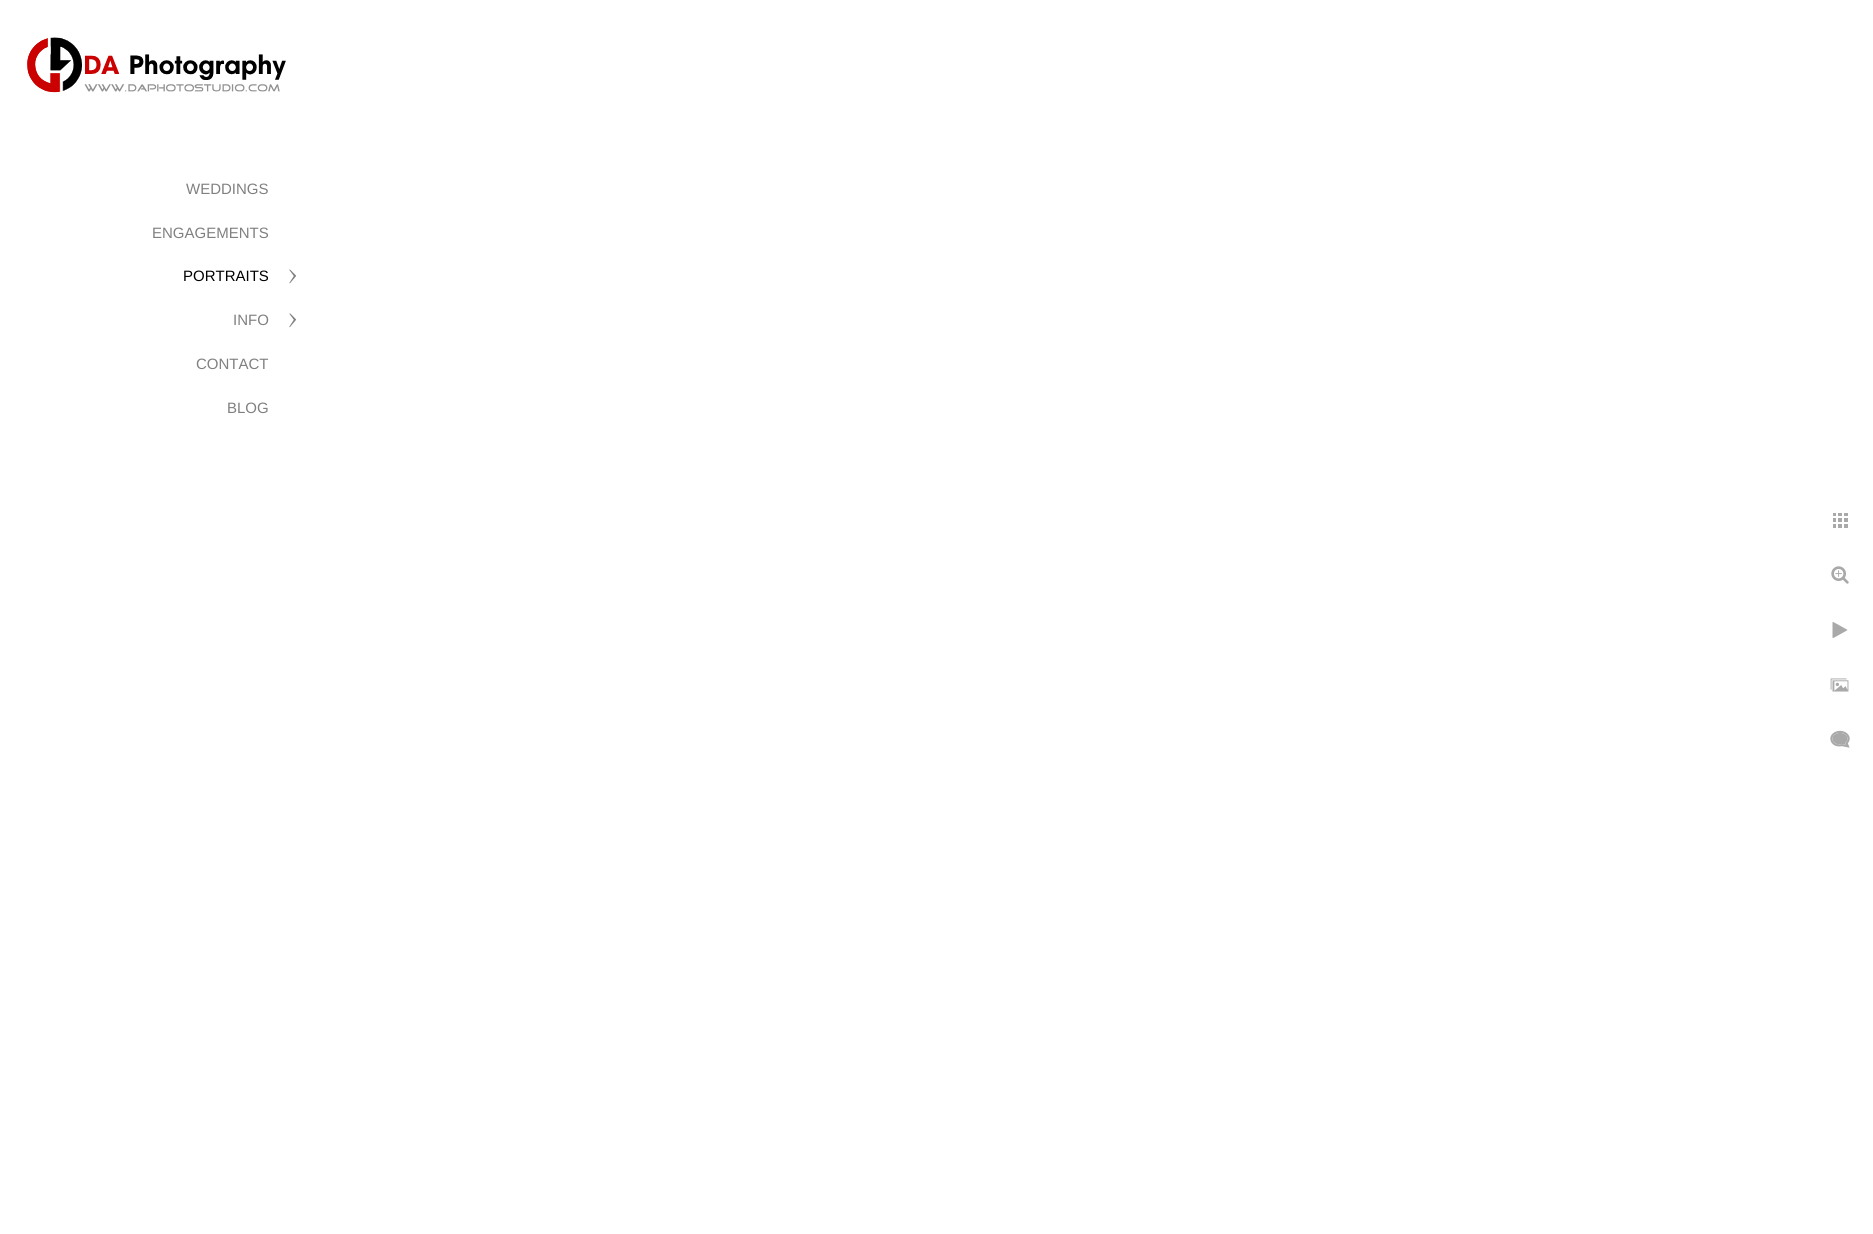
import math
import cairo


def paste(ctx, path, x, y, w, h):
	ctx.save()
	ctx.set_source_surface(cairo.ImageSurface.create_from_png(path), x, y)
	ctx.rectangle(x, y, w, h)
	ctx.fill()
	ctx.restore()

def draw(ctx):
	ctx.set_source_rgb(1, 1, 1)
	ctx.paint()
	paste(ctx, 'media/1.png', 27, 37, 259, 56)
	ctx.select_font_face('Liberation Sans')
	ctx.set_font_size(15)
	ctx.set_source_rgb(0.502, 0.502, 0.502)
	ctx.move_to(186, 194)
	ctx.show_text('WEDDINGS')
	ctx.move_to(152, 238)
	ctx.show_text('ENGAGEMENTS')
	ctx.set_source_rgb(0, 0, 0)
	ctx.move_to(183, 281)
	ctx.show_text('PORTRAITS')
	paste(ctx, 'media/2.png', 289, 269, 7, 15)
	ctx.set_source_rgb(0.502, 0.502, 0.502)
	ctx.move_to(233, 325)
	ctx.show_text('INFO')
	paste(ctx, 'media/3.png', 289, 313, 7, 15)
	ctx.move_to(196, 369)
	ctx.show_text('CONTACT')
	ctx.move_to(227, 413)
	ctx.show_text('BLOG')
	paste(ctx, 'media/4.png', 1833, 513, 15, 15)
	paste(ctx, 'media/5.png', 1831, 566, 18, 18)
	paste(ctx, 'media/6.png', 1832, 622, 16, 16)
	paste(ctx, 'media/7.png', 1830, 678, 19, 14)
	paste(ctx, 'media/8.png', 1830, 730, 20, 18)


surface = cairo.ImageSurface(cairo.FORMAT_RGB24, 1873, 1234)
ctx = cairo.Context(surface)
options = cairo.FontOptions()
options.set_hint_metrics(cairo.HINT_METRICS_OFF)
options.set_hint_style(cairo.HINT_STYLE_NONE)
ctx.set_font_options(options)
ctx.set_miter_limit(4)
draw(ctx)
surface.write_to_png('image.png')
